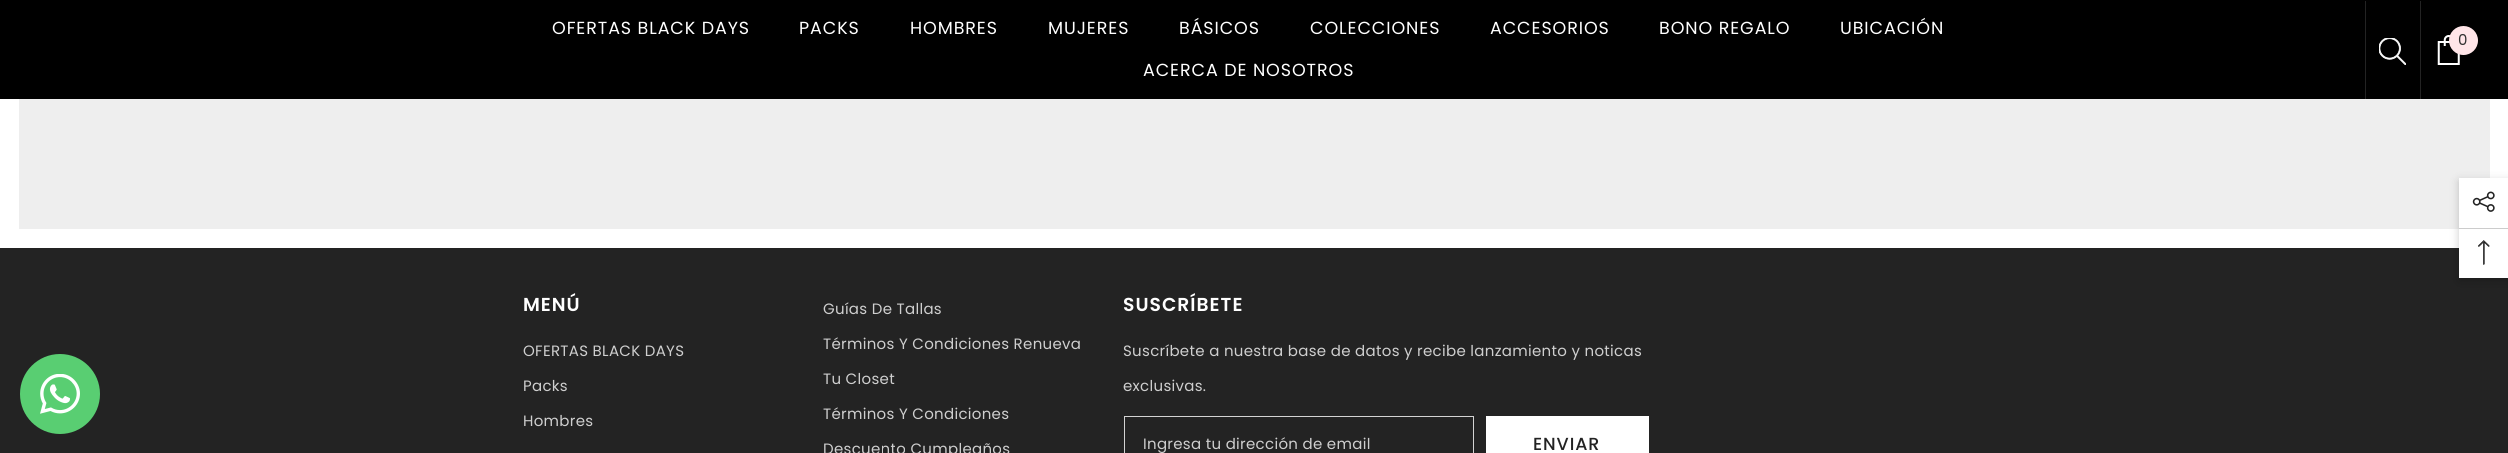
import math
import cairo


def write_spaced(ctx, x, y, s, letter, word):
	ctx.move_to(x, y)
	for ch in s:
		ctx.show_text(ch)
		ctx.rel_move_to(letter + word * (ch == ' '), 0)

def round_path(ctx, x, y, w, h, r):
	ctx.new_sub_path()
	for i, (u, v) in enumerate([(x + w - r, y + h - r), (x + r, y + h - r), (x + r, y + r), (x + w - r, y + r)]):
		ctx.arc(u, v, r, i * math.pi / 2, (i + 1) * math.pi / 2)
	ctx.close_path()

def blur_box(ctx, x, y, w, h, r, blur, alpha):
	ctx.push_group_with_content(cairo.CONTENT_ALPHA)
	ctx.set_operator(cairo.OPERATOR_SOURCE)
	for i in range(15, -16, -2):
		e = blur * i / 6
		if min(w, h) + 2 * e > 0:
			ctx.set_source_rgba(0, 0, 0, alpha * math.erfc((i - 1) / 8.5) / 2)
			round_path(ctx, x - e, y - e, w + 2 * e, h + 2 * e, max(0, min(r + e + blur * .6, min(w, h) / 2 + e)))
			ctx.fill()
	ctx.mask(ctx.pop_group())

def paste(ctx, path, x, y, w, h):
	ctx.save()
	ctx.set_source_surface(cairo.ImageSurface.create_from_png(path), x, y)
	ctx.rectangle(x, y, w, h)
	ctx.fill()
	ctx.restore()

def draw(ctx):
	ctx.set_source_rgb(1, 1, 1)
	ctx.paint()
	ctx.set_source_rgb(0, 0, 0)
	ctx.rectangle(0, 0, 2508, 99)
	ctx.fill()
	ctx.select_font_face('Poppins')
	ctx.set_font_size(17.5)
	ctx.set_source_rgb(1, 1, 1)
	for x, y, s in [
		(552, 34, 'OFERTAS BLACK DAYS'),
		(799, 34, 'PACKS'),
		(910, 34, 'HOMBRES'),
		(1048, 34, 'MUJERES'),
		(1179, 34, 'BÁSICOS'),
		(1310, 34, 'COLECCIONES'),
		(1490, 34, 'ACCESORIOS'),
		(1659, 34, 'BONO REGALO'),
		(1840, 34, 'UBICACIÓN'),
		(1143, 76, 'ACERCA DE NOSOTROS'),
	]:
		write_spaced(ctx, x, y, s, 0.9, 0)
	ctx.set_source_rgb(0.137, 0.137, 0.137)
	ctx.rectangle(2365, 1, 1, 98)
	ctx.fill()
	paste(ctx, 'media/1.png', 2379, 38, 27, 27)
	ctx.rectangle(2420, 1, 1, 98)
	ctx.fill()
	paste(ctx, 'media/2.png', 2437, 35, 23, 30)
	ctx.set_source_rgb(1, 0.898, 0.91)
	ctx.arc(2463.5, 40.5, 14.5, 0, 2 * math.pi)
	ctx.fill()
	ctx.set_font_size(15)
	ctx.set_source_rgb(0.196, 0.196, 0.196)
	ctx.move_to(2458, 45)
	ctx.show_text('0')
	ctx.set_source_rgb(0.933, 0.933, 0.933)
	ctx.rectangle(19, 99, 2471, 130)
	ctx.fill()
	ctx.set_source_rgb(0.137, 0.137, 0.137)
	ctx.rectangle(0, 248, 2508, 205)
	ctx.fill()
	ctx.select_font_face('Poppins SemiBold')
	ctx.set_font_size(18.75)
	ctx.set_source_rgb(1, 1, 1)
	write_spaced(ctx, 523, 311, 'MENÚ', 1, 0)
	ctx.select_font_face('Poppins')
	ctx.set_font_size(15)
	ctx.set_source_rgb(0.812, 0.812, 0.812)
	for x, y, s in [
		(523, 356, 'OFERTAS BLACK DAYS'),
		(523, 391, 'Packs'),
		(523, 426, 'Hombres'),
		(823, 314, 'Guías De Tallas'),
		(823, 349, 'Términos Y Condiciones Renueva'),
		(823, 384, 'Tu Closet'),
		(823, 419, 'Términos Y Condiciones'),
		(823, 454, 'Descuento Cumpleaños'),
	]:
		write_spaced(ctx, x, y, s, 0.3, 0)
	ctx.select_font_face('Poppins SemiBold')
	ctx.set_font_size(18.75)
	ctx.set_source_rgb(1, 1, 1)
	write_spaced(ctx, 1123, 311, 'SUSCRÍBETE', 1, 0)
	ctx.select_font_face('Poppins')
	ctx.set_font_size(15)
	ctx.set_source_rgb(0.812, 0.812, 0.812)
	write_spaced(ctx, 1123, 356, 'Suscríbete a nuestra base de datos y recibe lanzamiento y noticas', 0.3, 0)
	write_spaced(ctx, 1123, 391, 'exclusivas.', 0.3, 0)
	ctx.rectangle(1124.5, 416.5, 349, 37)
	ctx.set_source_rgb(0.827, 0.827, 0.827)
	ctx.set_line_width(1)
	ctx.stroke()
	ctx.set_source_rgb(0.812, 0.812, 0.812)
	write_spaced(ctx, 1143, 449, 'Ingresa tu dirección de email', 0.3, 0)
	ctx.set_source_rgb(1, 1, 1)
	ctx.rectangle(1486, 416, 163, 37)
	ctx.fill()
	ctx.select_font_face('Poppins Medium')
	ctx.set_font_size(17.5)
	ctx.set_source_rgb(0.137, 0.137, 0.137)
	write_spaced(ctx, 1533, 450, 'ENVIAR', 0.9, 0)
	ctx.set_source_rgb(0, 0, 0)
	blur_box(ctx, 2459, 181, 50, 100, 0, 4.5, 0.2)
	ctx.set_source_rgb(1, 1, 1)
	ctx.rectangle(2459, 178, 49, 100)
	ctx.fill()
	paste(ctx, 'media/3.png', 2472, 191, 23, 21)
	ctx.set_source_rgb(0.8, 0.8, 0.8)
	ctx.rectangle(2459, 228, 49, 1)
	ctx.fill()
	paste(ctx, 'media/4.png', 2478, 240, 12, 25)
	ctx.set_source_rgb(0.349, 0.808, 0.447)
	ctx.arc(60, 394, 40, 0, 2 * math.pi)
	ctx.fill()
	paste(ctx, 'media/5.png', 40, 374, 40, 40)


surface = cairo.ImageSurface(cairo.FORMAT_RGB24, 2508, 453)
ctx = cairo.Context(surface)
options = cairo.FontOptions()
options.set_hint_metrics(cairo.HINT_METRICS_OFF)
options.set_hint_style(cairo.HINT_STYLE_NONE)
ctx.set_font_options(options)
ctx.set_miter_limit(4)
draw(ctx)
surface.write_to_png('image.png')
